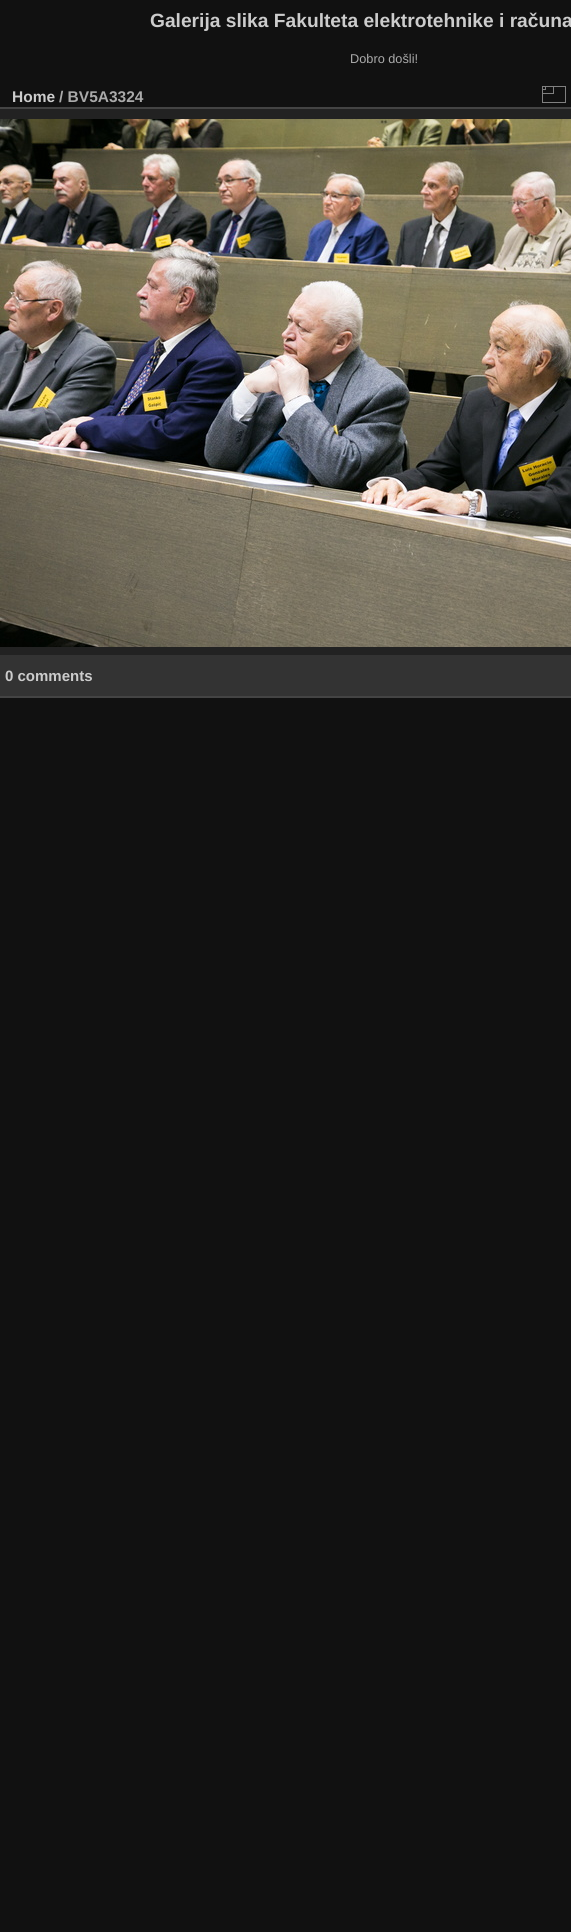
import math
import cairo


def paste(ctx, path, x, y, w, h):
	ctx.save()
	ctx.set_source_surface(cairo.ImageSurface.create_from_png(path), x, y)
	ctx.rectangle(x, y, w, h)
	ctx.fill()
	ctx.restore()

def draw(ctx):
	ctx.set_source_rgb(0.067, 0.067, 0.067)
	ctx.paint()
	ctx.select_font_face('Liberation Sans', cairo.FONT_SLANT_NORMAL, cairo.FONT_WEIGHT_BOLD)
	ctx.set_font_size(19.2)
	ctx.set_source_rgb(0.8, 0.8, 0.8)
	ctx.move_to(150, 27)
	ctx.show_text('Galerija slika Fakulteta elektrotehnike i računa')
	ctx.select_font_face('Liberation Sans')
	ctx.set_font_size(12.75)
	ctx.set_source_rgb(0.667, 0.667, 0.667)
	ctx.move_to(350, 63)
	ctx.show_text('Dobro došli!')
	ctx.set_source_rgb(0.133, 0.133, 0.133)
	ctx.rectangle(0, 109, 571, 546)
	ctx.fill()
	ctx.set_source_rgb(0.267, 0.267, 0.267)
	ctx.rectangle(0, 696, 571, 2)
	ctx.rectangle(0, 107, 571, 2)
	ctx.fill()
	ctx.select_font_face('Liberation Sans', cairo.FONT_SLANT_NORMAL, cairo.FONT_WEIGHT_BOLD)
	ctx.set_font_size(15.5)
	ctx.set_source_rgb(0.8, 0.8, 0.8)
	ctx.move_to(12, 102)
	ctx.show_text('Home')
	ctx.set_source_rgb(0.667, 0.667, 0.667)
	ctx.move_to(59, 102)
	ctx.show_text('/ BV5A3324')
	paste(ctx, 'media/1.png', 542, 86, 24, 17)
	paste(ctx, 'media/2.png', 0, 119, 571, 528)
	ctx.set_source_rgb(0.2, 0.2, 0.2)
	ctx.rectangle(0, 655, 571, 41)
	ctx.fill()
	ctx.set_font_size(15)
	ctx.set_source_rgb(0.8, 0.8, 0.8)
	ctx.move_to(5, 681)
	ctx.show_text('0 comments')


surface = cairo.ImageSurface(cairo.FORMAT_RGB24, 571, 1932)
ctx = cairo.Context(surface)
options = cairo.FontOptions()
options.set_hint_metrics(cairo.HINT_METRICS_OFF)
options.set_hint_style(cairo.HINT_STYLE_NONE)
ctx.set_font_options(options)
ctx.set_miter_limit(4)
draw(ctx)
surface.write_to_png('image.png')
